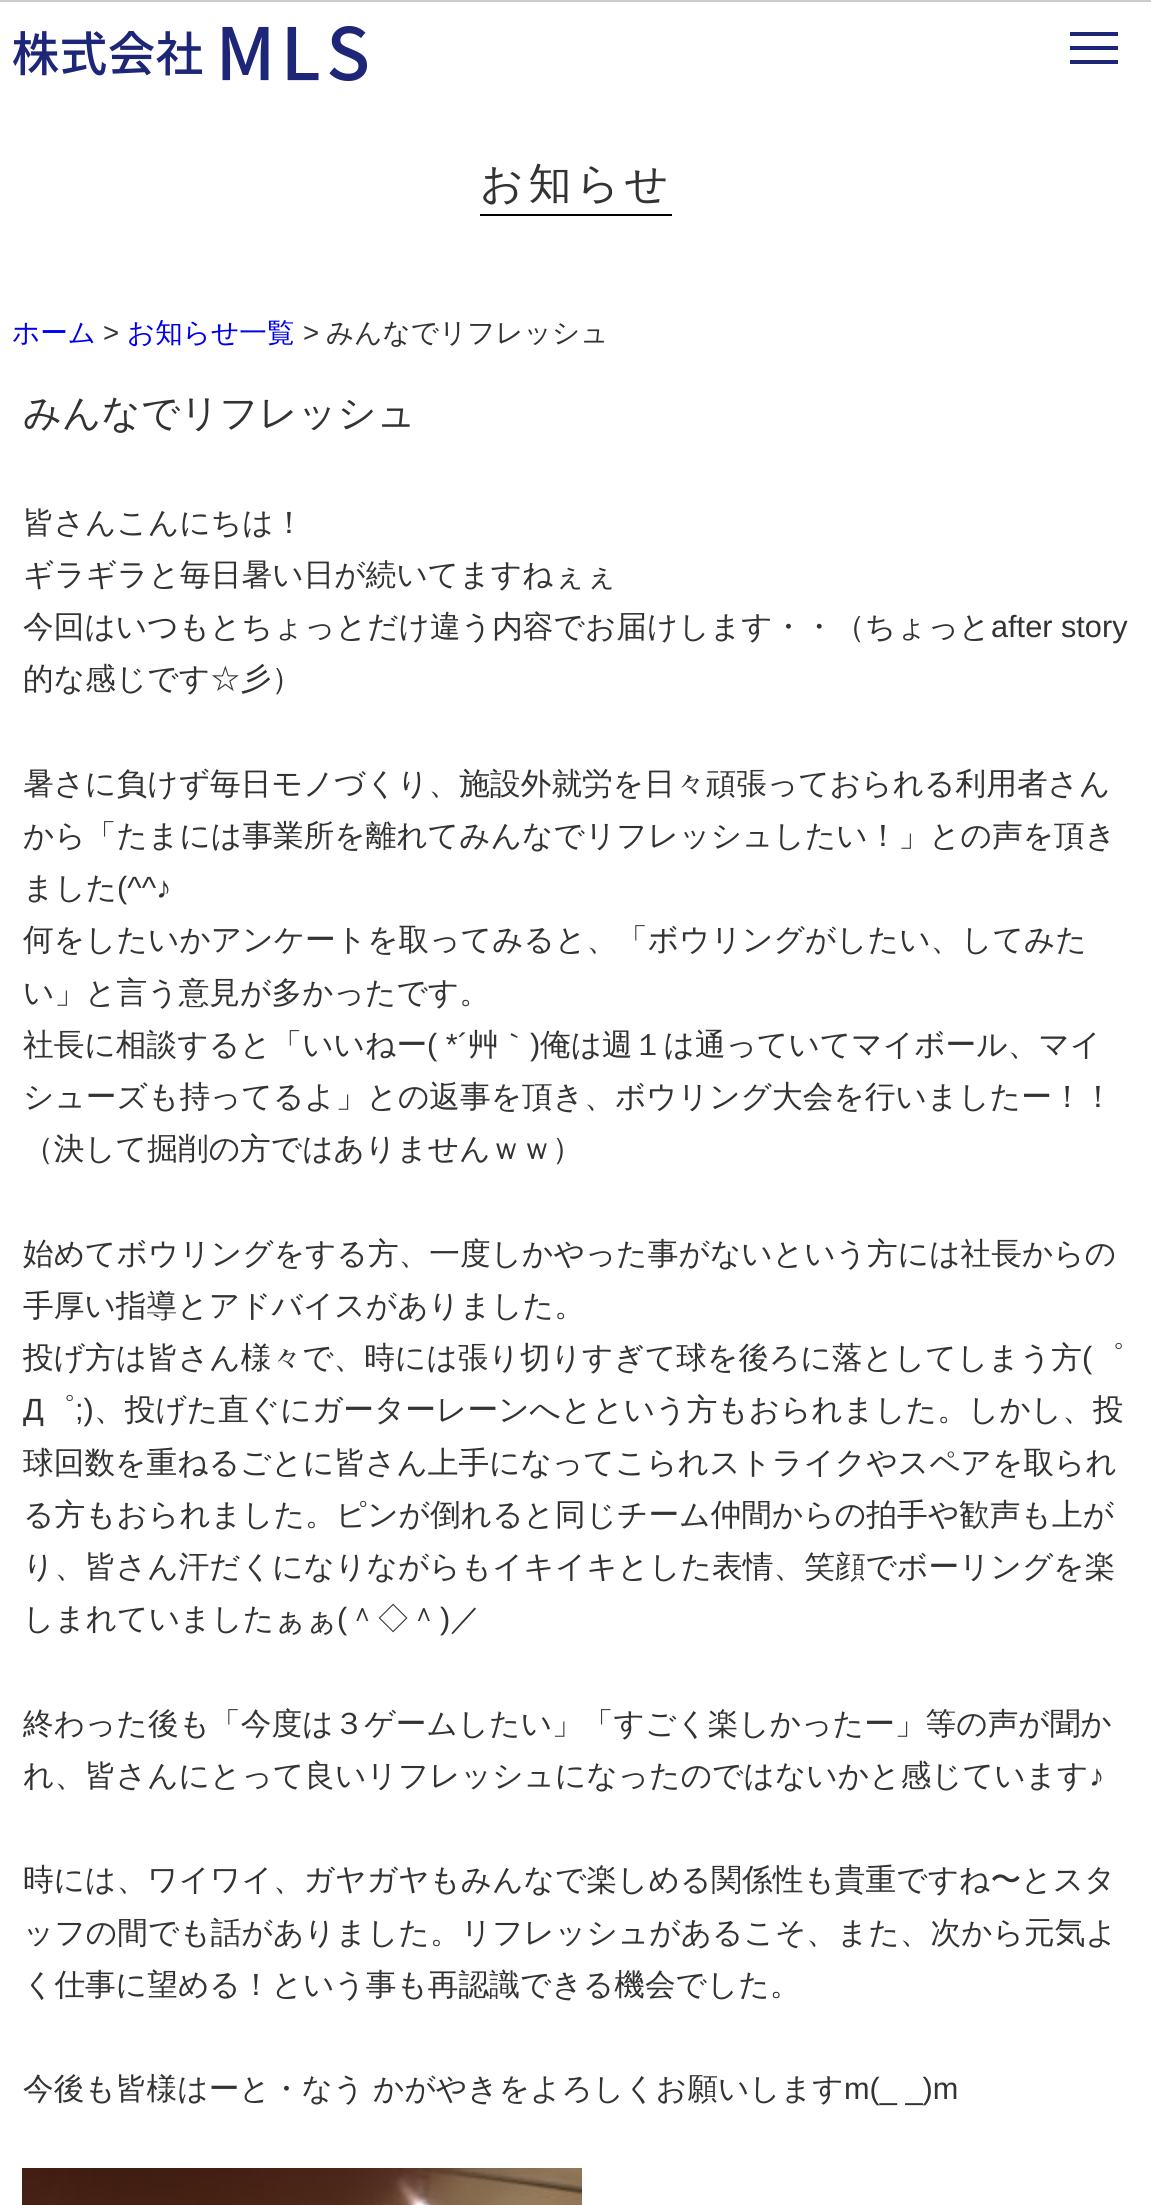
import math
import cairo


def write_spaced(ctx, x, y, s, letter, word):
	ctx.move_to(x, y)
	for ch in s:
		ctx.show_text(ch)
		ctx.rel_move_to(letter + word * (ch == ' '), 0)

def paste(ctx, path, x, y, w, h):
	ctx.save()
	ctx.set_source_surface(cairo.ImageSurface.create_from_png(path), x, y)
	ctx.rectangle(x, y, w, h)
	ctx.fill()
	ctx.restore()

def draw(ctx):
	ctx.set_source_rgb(1, 1, 1)
	ctx.paint()
	ctx.set_source_rgb(0.8, 0.8, 0.8)
	ctx.rectangle(0, 0, 1151, 2)
	ctx.fill()
	paste(ctx, 'media/1.png', 13, 26, 354, 55)
	ctx.set_source_rgb(0.118, 0.149, 0.471)
	ctx.rectangle(1070, 32, 48, 4)
	ctx.rectangle(1070, 46, 48, 4)
	ctx.rectangle(1070, 60, 48, 4)
	ctx.fill()
	ctx.set_source_rgb(0, 0, 0)
	ctx.rectangle(480, 214, 192, 2)
	ctx.fill()
	ctx.select_font_face('WenQuanYi Zen Hei Medium')
	ctx.set_font_size(43)
	ctx.set_source_rgb(0.2, 0.2, 0.2)
	write_spaced(ctx, 480, 198, 'お知らせ', 4.5, 0)
	ctx.set_font_size(27.6)
	ctx.set_source_rgb(0, 0, 0.933)
	ctx.move_to(12, 342)
	ctx.show_text('ホーム')
	ctx.select_font_face('Liberation Sans')
	ctx.set_source_rgb(0.2, 0.2, 0.2)
	ctx.move_to(103, 342)
	ctx.show_text('>')
	ctx.select_font_face('WenQuanYi Zen Hei Medium')
	ctx.set_source_rgb(0, 0, 0.933)
	ctx.move_to(127, 342)
	ctx.show_text('お知らせ一覧')
	ctx.select_font_face('Liberation Sans')
	ctx.set_source_rgb(0.2, 0.2, 0.2)
	ctx.move_to(303, 342)
	ctx.show_text('>')
	ctx.select_font_face('WenQuanYi Zen Hei Medium')
	ctx.move_to(326, 342)
	ctx.show_text('みんなでリフレッシュ')
	ctx.set_font_size(38.4)
	ctx.move_to(23, 426)
	ctx.show_text('みんなでリフレッシュ')
	ctx.set_font_size(30.7)
	for x, y, s in [
		(23, 533, '皆さんこんにちは！'),
		(23, 585, 'ギラギラと毎日暑い日が続いてますねぇぇ'),
		(23, 637, '今回はいつもとちょっとだけ違う内容でお届けします・・（ちょっと'),
	]:
		ctx.move_to(x, y)
		ctx.show_text(s)
	ctx.select_font_face('Liberation Sans')
	ctx.move_to(991, 637)
	ctx.show_text('after story')
	ctx.select_font_face('WenQuanYi Zen Hei Medium')
	for x, y, s in [
		(23, 689, '的な感じです☆彡）'),
		(23, 794, '暑さに負けず毎日モノづくり、施設外就労を日々頑張っておられる利用者さん'),
		(23, 846, 'から「たまには事業所を離れてみんなでリフレッシュしたい！」との声を頂き'),
		(23, 898, 'ました'),
	]:
		ctx.move_to(x, y)
		ctx.show_text(s)
	ctx.select_font_face('Liberation Sans')
	ctx.move_to(117, 898)
	ctx.show_text('(^^♪')
	ctx.select_font_face('WenQuanYi Zen Hei Medium')
	for x, y, s in [
		(23, 950, '何をしたいかアンケートを取ってみると、「ボウリングがしたい、してみた'),
		(23, 1003, 'い」と言う意見が多かったです。'),
		(23, 1055, '社長に相談すると「いいねー'),
	]:
		ctx.move_to(x, y)
		ctx.show_text(s)
	ctx.select_font_face('Liberation Sans')
	ctx.move_to(427, 1055)
	ctx.show_text('( *´')
	ctx.select_font_face('WenQuanYi Zen Hei Medium')
	ctx.move_to(468, 1055)
	ctx.show_text('艸｀')
	ctx.select_font_face('Liberation Sans')
	ctx.move_to(530, 1055)
	ctx.show_text(')')
	ctx.select_font_face('WenQuanYi Zen Hei Medium')
	for x, y, s in [
		(540, 1055, '俺は週１は通っていてマイボール、マイ'),
		(23, 1107, 'シューズも持ってるよ」との返事を頂き、ボウリング大会を行いましたー！！'),
		(23, 1159, '（決して掘削の方ではありませんｗｗ）'),
		(23, 1264, '始めてボウリングをする方、一度しかやった事がないという方には社長からの'),
		(23, 1316, '手厚い指導とアドバイスがありました。'),
		(23, 1368, '投げ方は皆さん様々で、時には張り切りすぎて球を後ろに落としてしまう方'),
	]:
		ctx.move_to(x, y)
		ctx.show_text(s)
	ctx.select_font_face('Liberation Sans')
	ctx.move_to(1082, 1368)
	ctx.show_text('(')
	ctx.select_font_face('WenQuanYi Zen Hei Medium')
	ctx.move_to(1093, 1368)
	ctx.show_text('゜')
	ctx.select_font_face('Liberation Sans')
	ctx.move_to(23, 1420)
	ctx.show_text('Д')
	ctx.select_font_face('WenQuanYi Zen Hei Medium')
	ctx.move_to(44, 1420)
	ctx.show_text('゜')
	ctx.select_font_face('Liberation Sans')
	ctx.move_to(75, 1420)
	ctx.show_text(';)')
	ctx.select_font_face('WenQuanYi Zen Hei Medium')
	for x, y, s in [
		(94, 1420, '、投げた直ぐにガーターレーンへとという方もおられました。しかし、投'),
		(23, 1473, '球回数を重ねるごとに皆さん上手になってこられストライクやスペアを取られ'),
		(23, 1525, 'る方もおられました。ピンが倒れると同じチーム仲間からの拍手や歓声も上が'),
		(23, 1577, 'り、皆さん汗だくになりながらもイキイキとした表情、笑顔でボーリングを楽'),
		(23, 1629, 'しまれていましたぁぁ'),
	]:
		ctx.move_to(x, y)
		ctx.show_text(s)
	ctx.select_font_face('Liberation Sans')
	ctx.move_to(337, 1629)
	ctx.show_text('(')
	ctx.select_font_face('WenQuanYi Zen Hei Medium')
	ctx.move_to(347, 1629)
	ctx.show_text('＾◇＾')
	ctx.select_font_face('Liberation Sans')
	ctx.move_to(440, 1629)
	ctx.show_text(')')
	ctx.select_font_face('WenQuanYi Zen Hei Medium')
	for x, y, s in [
		(450, 1629, '／'),
		(23, 1734, '終わった後も「今度は３ゲームしたい」「すごく楽しかったー」等の声が聞か'),
		(23, 1786, 'れ、皆さんにとって良いリフレッシュになったのではないかと感じています'),
	]:
		ctx.move_to(x, y)
		ctx.show_text(s)
	ctx.select_font_face('Liberation Sans')
	ctx.move_to(1089, 1786)
	ctx.show_text('♪')
	ctx.select_font_face('WenQuanYi Zen Hei Medium')
	for x, y, s in [
		(23, 1890, '時には、ワイワイ、ガヤガヤもみんなで楽しめる関係性も貴重ですね〜とスタ'),
		(23, 1943, 'ッフの間でも話がありました。リフレッシュがあるこそ、また、次から元気よ'),
		(23, 1995, 'く仕事に望める！という事も再認識できる機会でした。'),
		(23, 2099, '今後も皆様はーと・なう'),
		(373, 2099, 'かがやきをよろしくお願いします'),
	]:
		ctx.move_to(x, y)
		ctx.show_text(s)
	ctx.select_font_face('Liberation Sans')
	ctx.move_to(844, 2099)
	ctx.show_text('m(_ _)m')
	paste(ctx, 'media/2.png', 22, 2168, 560, 37)


surface = cairo.ImageSurface(cairo.FORMAT_RGB24, 1151, 2205)
ctx = cairo.Context(surface)
options = cairo.FontOptions()
options.set_hint_metrics(cairo.HINT_METRICS_OFF)
options.set_hint_style(cairo.HINT_STYLE_NONE)
ctx.set_font_options(options)
ctx.set_miter_limit(4)
draw(ctx)
surface.write_to_png('image.png')
